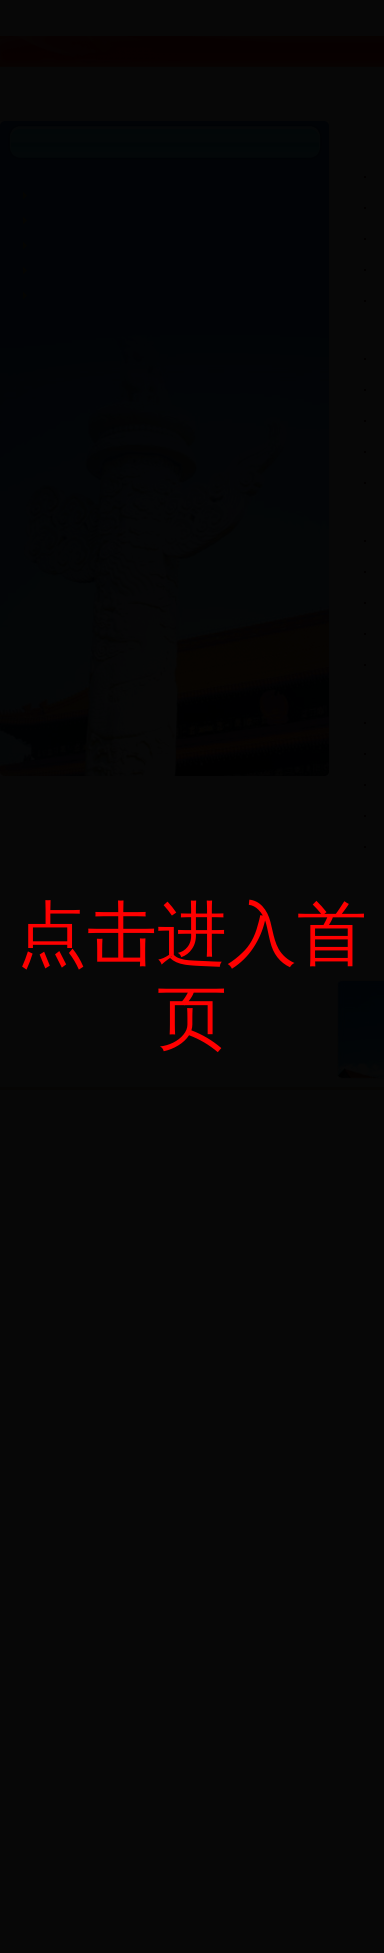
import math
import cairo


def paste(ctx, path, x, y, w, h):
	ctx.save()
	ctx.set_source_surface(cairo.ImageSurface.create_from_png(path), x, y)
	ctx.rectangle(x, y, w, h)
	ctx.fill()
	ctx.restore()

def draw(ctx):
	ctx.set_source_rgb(0.031, 0.031, 0.031)
	ctx.paint()
	paste(ctx, 'media/1.png', 0, 36, 384, 31)
	paste(ctx, 'media/2.png', 0, 121, 329, 44)
	paste(ctx, 'media/3.png', 0, 165, 329, 308)
	paste(ctx, 'media/4.png', 23, 192, 4, 7)
	paste(ctx, 'media/4.png', 23, 217, 4, 7)
	paste(ctx, 'media/4.png', 23, 242, 4, 7)
	paste(ctx, 'media/4.png', 23, 267, 4, 7)
	paste(ctx, 'media/4.png', 23, 292, 4, 7)
	paste(ctx, 'media/5.png', 0, 473, 329, 303)
	ctx.set_source_rgb(0.008, 0, 0)
	ctx.rectangle(364, 176, 2, 2)
	ctx.rectangle(364, 207, 2, 2)
	ctx.rectangle(364, 238, 2, 2)
	ctx.rectangle(364, 269, 2, 2)
	ctx.rectangle(364, 300, 2, 2)
	ctx.rectangle(364, 358, 2, 2)
	ctx.rectangle(364, 389, 2, 2)
	ctx.rectangle(364, 420, 2, 2)
	ctx.rectangle(364, 451, 2, 2)
	ctx.rectangle(364, 482, 2, 2)
	ctx.rectangle(364, 540, 2, 2)
	ctx.rectangle(364, 571, 2, 2)
	ctx.rectangle(364, 602, 2, 2)
	ctx.rectangle(364, 633, 2, 2)
	ctx.rectangle(364, 664, 2, 2)
	ctx.rectangle(364, 722, 2, 2)
	ctx.rectangle(364, 753, 2, 2)
	ctx.rectangle(364, 784, 2, 2)
	ctx.rectangle(364, 815, 2, 2)
	ctx.rectangle(364, 846, 2, 2)
	ctx.fill()
	paste(ctx, 'media/6.png', 337, 980, 47, 99)
	ctx.select_font_face('WenQuanYi Zen Hei Medium')
	ctx.set_font_size(70)
	ctx.set_source_rgb(1, 0, 0)
	ctx.move_to(17, 958)
	ctx.show_text('点击进入首')
	ctx.move_to(157, 1042)
	ctx.show_text('页')
	ctx.set_source_rgb(0.027, 0.02, 0.016)
	ctx.rectangle(0, 1087, 384, 3)
	ctx.fill()


surface = cairo.ImageSurface(cairo.FORMAT_RGB24, 384, 1953)
ctx = cairo.Context(surface)
options = cairo.FontOptions()
options.set_hint_metrics(cairo.HINT_METRICS_OFF)
options.set_hint_style(cairo.HINT_STYLE_NONE)
ctx.set_font_options(options)
ctx.set_miter_limit(4)
draw(ctx)
surface.write_to_png('image.png')
